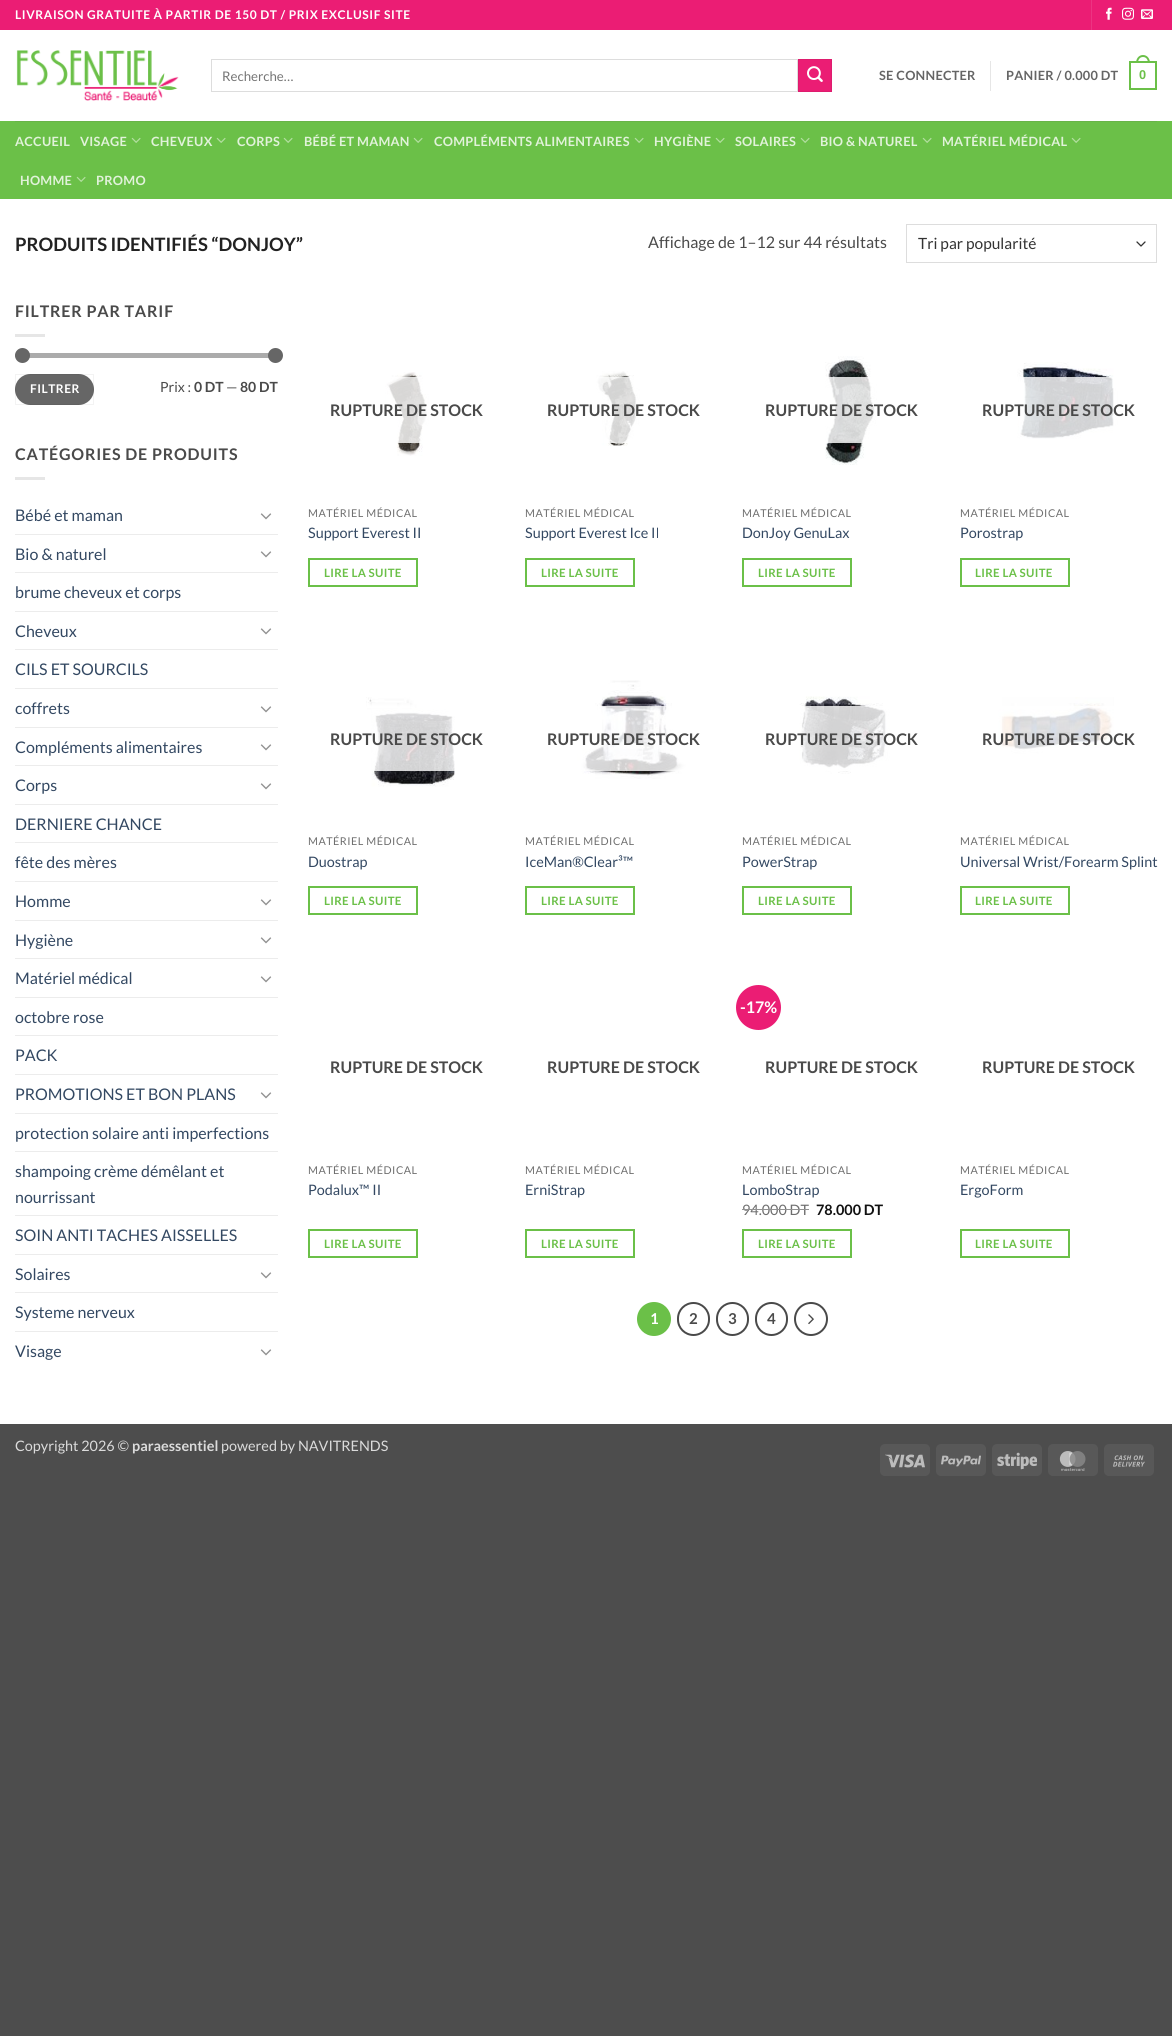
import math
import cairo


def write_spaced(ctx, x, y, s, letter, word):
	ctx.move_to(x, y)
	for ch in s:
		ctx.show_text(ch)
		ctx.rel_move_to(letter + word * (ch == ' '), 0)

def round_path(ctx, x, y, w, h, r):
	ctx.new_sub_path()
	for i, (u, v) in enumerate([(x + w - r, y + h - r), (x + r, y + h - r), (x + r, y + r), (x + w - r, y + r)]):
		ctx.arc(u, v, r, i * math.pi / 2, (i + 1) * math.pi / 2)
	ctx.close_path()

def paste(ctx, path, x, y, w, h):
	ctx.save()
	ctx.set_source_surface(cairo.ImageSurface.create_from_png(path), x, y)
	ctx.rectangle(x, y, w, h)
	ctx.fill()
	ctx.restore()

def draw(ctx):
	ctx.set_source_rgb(0.302, 0.302, 0.302)
	ctx.paint()
	ctx.set_source_rgb(1, 1, 1)
	ctx.rectangle(0, 30, 1172, 1394)
	ctx.fill()
	ctx.set_source_rgb(0.918, 0.114, 0.455)
	ctx.rectangle(0, 0, 1172, 30)
	ctx.fill()
	ctx.select_font_face('Lato', cairo.FONT_SLANT_NORMAL, cairo.FONT_WEIGHT_BOLD)
	ctx.set_font_size(12)
	ctx.set_source_rgb(1, 1, 1)
	write_spaced(ctx, 15, 19, 'LIVRAISON GRATUITE À PARTIR DE 150 DT / PRIX EXCLUSIF SITE', 0.6, 0)
	ctx.set_source_rgb(0.925, 0.204, 0.51)
	ctx.rectangle(1091, 0, 1, 30)
	ctx.fill()
	paste(ctx, 'media/1.png', 1106, 7, 6, 13)
	paste(ctx, 'media/2.png', 1122, 7, 12, 13)
	paste(ctx, 'media/3.png', 1141, 9, 12, 10)
	paste(ctx, 'media/4.png', 16, 50, 163, 51)
	ctx.rectangle(211.5, 59.5, 586, 32)
	ctx.set_source_rgb(0.867, 0.867, 0.867)
	ctx.set_line_width(1)
	ctx.stroke()
	ctx.select_font_face('Lato')
	ctx.set_font_size(13.25)
	ctx.set_source_rgb(0.459, 0.459, 0.459)
	ctx.move_to(222, 81)
	ctx.show_text('Recherche…')
	ctx.set_source_rgb(0.918, 0.114, 0.455)
	ctx.rectangle(798.5, 59.5, 33, 32)
	ctx.fill_preserve()
	ctx.set_source_rgb(0.871, 0.11, 0.431)
	ctx.stroke()
	paste(ctx, 'media/5.png', 807, 66, 16, 16)
	ctx.select_font_face('Lato', cairo.FONT_SLANT_NORMAL, cairo.FONT_WEIGHT_BOLD)
	ctx.set_font_size(12.75)
	ctx.set_source_rgb(0.396, 0.396, 0.396)
	write_spaced(ctx, 879, 80, 'SE CONNECTER', 0.25, 0)
	ctx.set_source_rgb(0.902, 0.902, 0.902)
	ctx.rectangle(990, 61, 1, 30)
	ctx.fill()
	ctx.set_source_rgb(0.396, 0.396, 0.396)
	write_spaced(ctx, 1006, 80, 'PANIER / 0.000 DT', 0.25, 0)
	ctx.rectangle(1130, 62, 26, 27)
	ctx.set_source_rgb(0.42, 0.753, 0.282)
	ctx.set_line_width(2)
	ctx.stroke()
	ctx.set_fill_rule(cairo.FILL_RULE_EVEN_ODD)
	ctx.new_path()
	ctx.move_to(1143, 55)
	ctx.curve_to(1147.5, 55, 1150, 59, 1150, 63)
	ctx.line_to(1136, 63)
	ctx.curve_to(1136, 59, 1138.5, 55, 1143, 55)
	ctx.close_path()
	ctx.move_to(1143, 57)
	ctx.curve_to(1146.5, 57, 1148, 60, 1148, 63)
	ctx.line_to(1138, 63)
	ctx.curve_to(1138, 60, 1139.5, 57, 1143, 57)
	ctx.close_path()
	ctx.fill()
	ctx.select_font_face('Liberation Sans', cairo.FONT_SLANT_NORMAL, cairo.FONT_WEIGHT_BOLD)
	write_spaced(ctx, 1139, 79, '0', 0.25, 0)
	ctx.rectangle(0, 121, 1172, 78)
	ctx.fill()
	ctx.set_source_rgb(0.408, 0.706, 0.282)
	ctx.rectangle(15, 121, 1142, 1)
	ctx.fill()
	ctx.select_font_face('Lato', cairo.FONT_SLANT_NORMAL, cairo.FONT_WEIGHT_BOLD)
	ctx.set_source_rgb(0.882, 0.949, 0.855)
	write_spaced(ctx, 15, 146, 'ACCUEIL', 0.25, 0)
	write_spaced(ctx, 80, 146, 'VISAGE', 0.25, 0)
	paste(ctx, 'media/6.png', 131, 137, 10, 6)
	write_spaced(ctx, 151, 146, 'CHEVEUX', 0.25, 0)
	paste(ctx, 'media/6.png', 216, 137, 10, 6)
	write_spaced(ctx, 237, 146, 'CORPS', 0.25, 0)
	paste(ctx, 'media/6.png', 283, 137, 10, 6)
	write_spaced(ctx, 304, 146, 'BÉBÉ ET MAMAN', 0.25, 0)
	paste(ctx, 'media/6.png', 413, 137, 10, 6)
	write_spaced(ctx, 434, 146, 'COMPLÉMENTS ALIMENTAIRES', 0.25, 0)
	paste(ctx, 'media/6.png', 634, 137, 10, 6)
	write_spaced(ctx, 654, 146, 'HYGIÈNE', 0.25, 0)
	paste(ctx, 'media/6.png', 715, 137, 10, 6)
	write_spaced(ctx, 735, 146, 'SOLAIRES', 0.25, 0)
	paste(ctx, 'media/6.png', 800, 137, 10, 6)
	write_spaced(ctx, 820, 146, 'BIO & NATUREL', 0.25, 0)
	paste(ctx, 'media/6.png', 922, 137, 10, 6)
	write_spaced(ctx, 942, 146, 'MATÉRIEL MÉDICAL', 0.25, 0)
	paste(ctx, 'media/6.png', 1071, 137, 10, 6)
	write_spaced(ctx, 20, 185, 'HOMME', 0.25, 0)
	paste(ctx, 'media/6.png', 76, 176, 10, 6)
	write_spaced(ctx, 96, 185, 'PROMO', 0.25, 0)
	ctx.set_font_size(18.4)
	ctx.set_source_rgb(0.133, 0.133, 0.133)
	ctx.move_to(15, 251)
	ctx.show_text('PRODUITS IDENTIFIÉS “DONJOY”')
	ctx.select_font_face('Lato')
	ctx.set_font_size(16)
	ctx.set_source_rgb(0.29, 0.29, 0.29)
	ctx.move_to(648, 248)
	ctx.show_text('Affichage de 1–12 sur 44 résultats')
	ctx.new_path()
	ctx.move_to(1137, 242)
	ctx.line_to(1141, 246)
	ctx.line_to(1145, 242)
	ctx.set_source_rgb(0.2, 0.2, 0.2)
	ctx.set_line_width(1.3)
	ctx.set_line_cap(cairo.LINE_CAP_ROUND)
	ctx.set_line_join(cairo.LINE_JOIN_ROUND)
	ctx.stroke()
	ctx.rectangle(906.5, 224.5, 250, 38)
	ctx.set_source_rgb(0.867, 0.867, 0.867)
	ctx.set_line_width(1)
	ctx.set_line_cap(cairo.LINE_CAP_BUTT)
	ctx.set_line_join(cairo.LINE_JOIN_MITER)
	ctx.stroke()
	ctx.set_font_size(15.5)
	ctx.set_source_rgb(0.2, 0.2, 0.2)
	ctx.move_to(918, 249)
	ctx.show_text('Tri par popularité')
	ctx.select_font_face('Lato', cairo.FONT_SLANT_NORMAL, cairo.FONT_WEIGHT_BOLD)
	ctx.set_font_size(16)
	ctx.set_source_rgb(0.29, 0.29, 0.29)
	write_spaced(ctx, 15, 317, 'FILTRER PAR TARIF', 0.8, 0)
	ctx.set_source_rgb(0.902, 0.902, 0.902)
	ctx.rectangle(15, 334, 30, 3)
	ctx.fill()
	ctx.set_source_rgb(0.945, 0.945, 0.945)
	round_path(ctx, 15, 353, 263, 5, 2.5)
	ctx.fill()
	ctx.set_source_rgba(0.4, 0.4, 0.4, 0.5)
	round_path(ctx, 15, 353, 263, 5, 2.5)
	ctx.fill()
	ctx.set_source_rgb(0.4, 0.4, 0.4)
	ctx.arc(22.5, 355.5, 7.5, 0, 2 * math.pi)
	ctx.fill()
	ctx.arc(275.5, 355.5, 7.5, 0, 2 * math.pi)
	ctx.fill()
	round_path(ctx, 15, 374, 79, 31, 15.5)
	ctx.fill()
	ctx.rectangle(15.5, 374.5, 78, 30)
	ctx.set_source_rgba(0, 0, 0, 0.05)
	ctx.stroke()
	ctx.set_font_size(12)
	ctx.set_source_rgb(1, 1, 1)
	write_spaced(ctx, 30, 393, 'FILTRER', 0.5, 0)
	ctx.select_font_face('Lato')
	ctx.set_font_size(14)
	ctx.set_source_rgb(0.29, 0.29, 0.29)
	ctx.move_to(160, 392)
	ctx.show_text('Prix :')
	ctx.select_font_face('Lato', cairo.FONT_SLANT_NORMAL, cairo.FONT_WEIGHT_BOLD)
	ctx.move_to(194, 392)
	ctx.show_text('0 DT')
	ctx.select_font_face('Lato')
	ctx.move_to(226, 392)
	ctx.show_text('—')
	ctx.select_font_face('Lato', cairo.FONT_SLANT_NORMAL, cairo.FONT_WEIGHT_BOLD)
	ctx.move_to(240, 392)
	ctx.show_text('80 DT')
	ctx.set_font_size(16)
	write_spaced(ctx, 15, 460, 'CATÉGORIES DE PRODUITS', 0.8, 0)
	ctx.set_source_rgb(0.902, 0.902, 0.902)
	ctx.rectangle(15, 477, 30, 3)
	ctx.fill()
	ctx.select_font_face('Lato')
	ctx.set_source_rgb(0.2, 0.282, 0.384)
	ctx.move_to(15, 521)
	ctx.show_text('Bébé et maman')
	paste(ctx, 'media/7.png', 260, 513, 12, 7)
	ctx.set_source_rgb(0.925, 0.925, 0.925)
	ctx.rectangle(15, 534, 263, 1)
	ctx.fill()
	ctx.set_source_rgb(0.2, 0.282, 0.384)
	ctx.move_to(15, 560)
	ctx.show_text('Bio & naturel')
	paste(ctx, 'media/7.png', 260, 551, 12, 7)
	ctx.set_source_rgb(0.925, 0.925, 0.925)
	ctx.rectangle(15, 572, 263, 1)
	ctx.fill()
	ctx.set_source_rgb(0.2, 0.282, 0.384)
	ctx.move_to(15, 598)
	ctx.show_text('brume cheveux et corps')
	ctx.set_source_rgb(0.925, 0.925, 0.925)
	ctx.rectangle(15, 611, 263, 1)
	ctx.fill()
	ctx.set_source_rgb(0.2, 0.282, 0.384)
	ctx.move_to(15, 637)
	ctx.show_text('Cheveux')
	paste(ctx, 'media/7.png', 260, 628, 12, 7)
	ctx.set_source_rgb(0.925, 0.925, 0.925)
	ctx.rectangle(15, 649, 263, 1)
	ctx.fill()
	ctx.set_source_rgb(0.2, 0.282, 0.384)
	ctx.move_to(15, 675)
	ctx.show_text('CILS ET SOURCILS')
	ctx.set_source_rgb(0.925, 0.925, 0.925)
	ctx.rectangle(15, 688, 263, 1)
	ctx.fill()
	ctx.set_source_rgb(0.2, 0.282, 0.384)
	ctx.move_to(15, 714)
	ctx.show_text('coffrets')
	paste(ctx, 'media/7.png', 260, 706, 12, 7)
	ctx.set_source_rgb(0.925, 0.925, 0.925)
	ctx.rectangle(15, 727, 263, 1)
	ctx.fill()
	ctx.set_source_rgb(0.2, 0.282, 0.384)
	ctx.move_to(15, 753)
	ctx.show_text('Compléments alimentaires')
	paste(ctx, 'media/7.png', 260, 744, 12, 7)
	ctx.set_source_rgb(0.925, 0.925, 0.925)
	ctx.rectangle(15, 765, 263, 1)
	ctx.fill()
	ctx.set_source_rgb(0.2, 0.282, 0.384)
	ctx.move_to(15, 791)
	ctx.show_text('Corps')
	paste(ctx, 'media/7.png', 260, 783, 12, 7)
	ctx.set_source_rgb(0.925, 0.925, 0.925)
	ctx.rectangle(15, 804, 263, 1)
	ctx.fill()
	ctx.set_source_rgb(0.2, 0.282, 0.384)
	ctx.move_to(15, 830)
	ctx.show_text('DERNIERE CHANCE')
	ctx.set_source_rgb(0.925, 0.925, 0.925)
	ctx.rectangle(15, 842, 263, 1)
	ctx.fill()
	ctx.set_source_rgb(0.2, 0.282, 0.384)
	ctx.move_to(15, 868)
	ctx.show_text('fête des mères')
	ctx.set_source_rgb(0.925, 0.925, 0.925)
	ctx.rectangle(15, 881, 263, 1)
	ctx.fill()
	ctx.set_source_rgb(0.2, 0.282, 0.384)
	ctx.move_to(15, 907)
	ctx.show_text('Homme')
	paste(ctx, 'media/7.png', 260, 899, 12, 7)
	ctx.set_source_rgb(0.925, 0.925, 0.925)
	ctx.rectangle(15, 920, 263, 1)
	ctx.fill()
	ctx.set_source_rgb(0.2, 0.282, 0.384)
	ctx.move_to(15, 946)
	ctx.show_text('Hygiène')
	paste(ctx, 'media/7.png', 260, 937, 12, 7)
	ctx.set_source_rgb(0.925, 0.925, 0.925)
	ctx.rectangle(15, 958, 263, 1)
	ctx.fill()
	ctx.set_source_rgb(0.2, 0.282, 0.384)
	ctx.move_to(15, 984)
	ctx.show_text('Matériel médical')
	paste(ctx, 'media/7.png', 260, 976, 12, 7)
	ctx.set_source_rgb(0.925, 0.925, 0.925)
	ctx.rectangle(15, 997, 263, 1)
	ctx.fill()
	ctx.set_source_rgb(0.2, 0.282, 0.384)
	ctx.move_to(15, 1023)
	ctx.show_text('octobre rose')
	ctx.set_source_rgb(0.925, 0.925, 0.925)
	ctx.rectangle(15, 1035, 263, 1)
	ctx.fill()
	ctx.set_source_rgb(0.2, 0.282, 0.384)
	ctx.move_to(15, 1061)
	ctx.show_text('PACK')
	ctx.set_source_rgb(0.925, 0.925, 0.925)
	ctx.rectangle(15, 1074, 263, 1)
	ctx.fill()
	ctx.set_source_rgb(0.2, 0.282, 0.384)
	ctx.move_to(15, 1100)
	ctx.show_text('PROMOTIONS ET BON PLANS')
	paste(ctx, 'media/7.png', 260, 1092, 12, 7)
	ctx.set_source_rgb(0.925, 0.925, 0.925)
	ctx.rectangle(15, 1113, 263, 1)
	ctx.fill()
	ctx.set_source_rgb(0.2, 0.282, 0.384)
	ctx.move_to(15, 1139)
	ctx.show_text('protection solaire anti imperfections')
	ctx.set_source_rgb(0.925, 0.925, 0.925)
	ctx.rectangle(15, 1151, 263, 1)
	ctx.fill()
	ctx.set_source_rgb(0.2, 0.282, 0.384)
	ctx.move_to(15, 1177)
	ctx.show_text('shampoing crème démêlant et')
	ctx.move_to(15, 1203)
	ctx.show_text('nourrissant')
	ctx.set_source_rgb(0.925, 0.925, 0.925)
	ctx.rectangle(15, 1215, 263, 1)
	ctx.fill()
	ctx.set_source_rgb(0.2, 0.282, 0.384)
	ctx.move_to(15, 1241)
	ctx.show_text('SOIN ANTI TACHES AISSELLES')
	ctx.set_source_rgb(0.925, 0.925, 0.925)
	ctx.rectangle(15, 1254, 263, 1)
	ctx.fill()
	ctx.set_source_rgb(0.2, 0.282, 0.384)
	ctx.move_to(15, 1280)
	ctx.show_text('Solaires')
	paste(ctx, 'media/7.png', 260, 1272, 12, 7)
	ctx.set_source_rgb(0.925, 0.925, 0.925)
	ctx.rectangle(15, 1292, 263, 1)
	ctx.fill()
	ctx.set_source_rgb(0.2, 0.282, 0.384)
	ctx.move_to(15, 1318)
	ctx.show_text('Systeme nerveux')
	ctx.set_source_rgb(0.925, 0.925, 0.925)
	ctx.rectangle(15, 1331, 263, 1)
	ctx.fill()
	ctx.set_source_rgb(0.2, 0.282, 0.384)
	ctx.move_to(15, 1357)
	ctx.show_text('Visage')
	paste(ctx, 'media/7.png', 260, 1349, 12, 7)
	paste(ctx, 'media/8.png', 385, 372, 44, 84)
	ctx.set_source_rgba(1, 1, 1, 0.81)
	ctx.rectangle(385, 377, 44, 66)
	ctx.fill()
	ctx.select_font_face('Lato', cairo.FONT_SLANT_NORMAL, cairo.FONT_WEIGHT_BOLD)
	ctx.set_source_rgb(0.29, 0.29, 0.29)
	ctx.move_to(330, 416)
	ctx.show_text('RUPTURE DE STOCK')
	ctx.select_font_face('Lato')
	ctx.set_font_size(10.75)
	ctx.set_source_rgb(0.431, 0.431, 0.431)
	write_spaced(ctx, 308, 517, 'MATÉRIEL MÉDICAL', 0.5, 0)
	ctx.set_font_size(14.4)
	ctx.set_source_rgb(0.2, 0.282, 0.384)
	ctx.move_to(308, 538)
	ctx.show_text('Support Everest II')
	ctx.rectangle(309, 559, 108, 27)
	ctx.set_source_rgb(0.42, 0.753, 0.282)
	ctx.set_line_width(2)
	ctx.stroke()
	ctx.select_font_face('Lato', cairo.FONT_SLANT_NORMAL, cairo.FONT_WEIGHT_BOLD)
	ctx.set_font_size(11.5)
	write_spaced(ctx, 324, 577, 'LIRE LA SUITE', 0.3, 0)
	paste(ctx, 'media/9.png', 596, 371, 44, 75)
	ctx.set_source_rgba(1, 1, 1, 0.81)
	ctx.rectangle(596, 377, 44, 66)
	ctx.fill()
	ctx.set_font_size(16)
	ctx.set_source_rgb(0.29, 0.29, 0.29)
	ctx.move_to(547, 416)
	ctx.show_text('RUPTURE DE STOCK')
	ctx.select_font_face('Lato')
	ctx.set_font_size(10.75)
	ctx.set_source_rgb(0.431, 0.431, 0.431)
	write_spaced(ctx, 525, 517, 'MATÉRIEL MÉDICAL', 0.5, 0)
	ctx.set_font_size(14.4)
	ctx.set_source_rgb(0.2, 0.282, 0.384)
	ctx.move_to(525, 538)
	ctx.show_text('Support Everest Ice II')
	ctx.rectangle(526, 559, 108, 27)
	ctx.set_source_rgb(0.42, 0.753, 0.282)
	ctx.stroke()
	ctx.select_font_face('Lato', cairo.FONT_SLANT_NORMAL, cairo.FONT_WEIGHT_BOLD)
	ctx.set_font_size(11.5)
	write_spaced(ctx, 541, 577, 'LIRE LA SUITE', 0.3, 0)
	paste(ctx, 'media/10.png', 825, 356, 52, 109)
	ctx.set_source_rgba(1, 1, 1, 0.81)
	ctx.rectangle(825, 377, 52, 66)
	ctx.fill()
	ctx.set_font_size(16)
	ctx.set_source_rgb(0.29, 0.29, 0.29)
	ctx.move_to(765, 416)
	ctx.show_text('RUPTURE DE STOCK')
	ctx.select_font_face('Lato')
	ctx.set_font_size(10.75)
	ctx.set_source_rgb(0.431, 0.431, 0.431)
	write_spaced(ctx, 742, 517, 'MATÉRIEL MÉDICAL', 0.5, 0)
	ctx.set_font_size(14.4)
	ctx.set_source_rgb(0.2, 0.282, 0.384)
	ctx.move_to(742, 538)
	ctx.show_text('DonJoy GenuLax')
	ctx.rectangle(743, 559, 108, 27)
	ctx.set_source_rgb(0.42, 0.753, 0.282)
	ctx.stroke()
	ctx.select_font_face('Lato', cairo.FONT_SLANT_NORMAL, cairo.FONT_WEIGHT_BOLD)
	ctx.set_font_size(11.5)
	write_spaced(ctx, 758, 577, 'LIRE LA SUITE', 0.3, 0)
	paste(ctx, 'media/11.png', 1017, 362, 102, 77)
	ctx.set_source_rgba(1, 1, 1, 0.81)
	ctx.rectangle(1017, 377, 102, 62)
	ctx.fill()
	ctx.set_font_size(16)
	ctx.set_source_rgb(0.29, 0.29, 0.29)
	ctx.move_to(982, 416)
	ctx.show_text('RUPTURE DE STOCK')
	ctx.select_font_face('Lato')
	ctx.set_font_size(10.75)
	ctx.set_source_rgb(0.431, 0.431, 0.431)
	write_spaced(ctx, 960, 517, 'MATÉRIEL MÉDICAL', 0.5, 0)
	ctx.set_font_size(14.4)
	ctx.set_source_rgb(0.2, 0.282, 0.384)
	ctx.move_to(960, 538)
	ctx.show_text('Porostrap')
	ctx.rectangle(961, 559, 108, 27)
	ctx.set_source_rgb(0.42, 0.753, 0.282)
	ctx.stroke()
	ctx.select_font_face('Lato', cairo.FONT_SLANT_NORMAL, cairo.FONT_WEIGHT_BOLD)
	ctx.set_font_size(11.5)
	write_spaced(ctx, 975, 577, 'LIRE LA SUITE', 0.3, 0)
	paste(ctx, 'media/12.png', 366, 697, 89, 90)
	ctx.set_source_rgba(1, 1, 1, 0.81)
	ctx.rectangle(372, 709, 83, 62)
	ctx.fill()
	ctx.set_font_size(16)
	ctx.set_source_rgb(0.29, 0.29, 0.29)
	ctx.move_to(330, 745)
	ctx.show_text('RUPTURE DE STOCK')
	ctx.select_font_face('Lato')
	ctx.set_font_size(10.75)
	ctx.set_source_rgb(0.431, 0.431, 0.431)
	write_spaced(ctx, 308, 845, 'MATÉRIEL MÉDICAL', 0.5, 0)
	ctx.set_font_size(14.4)
	ctx.set_source_rgb(0.2, 0.282, 0.384)
	ctx.move_to(308, 867)
	ctx.show_text('Duostrap')
	ctx.rectangle(309, 887, 108, 27)
	ctx.set_source_rgb(0.42, 0.753, 0.282)
	ctx.stroke()
	ctx.select_font_face('Lato', cairo.FONT_SLANT_NORMAL, cairo.FONT_WEIGHT_BOLD)
	ctx.set_font_size(11.5)
	write_spaced(ctx, 324, 905, 'LIRE LA SUITE', 0.3, 0)
	paste(ctx, 'media/13.png', 577, 680, 109, 99)
	ctx.set_source_rgba(1, 1, 1, 0.81)
	ctx.rectangle(577, 706, 109, 65)
	ctx.fill()
	ctx.set_font_size(16)
	ctx.set_source_rgb(0.29, 0.29, 0.29)
	ctx.move_to(547, 745)
	ctx.show_text('RUPTURE DE STOCK')
	ctx.select_font_face('Lato')
	ctx.set_font_size(10.75)
	ctx.set_source_rgb(0.431, 0.431, 0.431)
	write_spaced(ctx, 525, 845, 'MATÉRIEL MÉDICAL', 0.5, 0)
	ctx.set_font_size(14.4)
	ctx.set_source_rgb(0.2, 0.282, 0.384)
	ctx.move_to(525, 867)
	ctx.show_text('IceMan®Clear³™')
	ctx.rectangle(526, 887, 108, 27)
	ctx.set_source_rgb(0.42, 0.753, 0.282)
	ctx.stroke()
	ctx.select_font_face('Lato', cairo.FONT_SLANT_NORMAL, cairo.FONT_WEIGHT_BOLD)
	ctx.set_font_size(11.5)
	write_spaced(ctx, 541, 905, 'LIRE LA SUITE', 0.3, 0)
	paste(ctx, 'media/14.png', 799, 696, 91, 78)
	ctx.set_source_rgba(1, 1, 1, 0.81)
	ctx.rectangle(799, 706, 91, 65)
	ctx.fill()
	ctx.set_font_size(16)
	ctx.set_source_rgb(0.29, 0.29, 0.29)
	ctx.move_to(765, 745)
	ctx.show_text('RUPTURE DE STOCK')
	ctx.select_font_face('Lato')
	ctx.set_font_size(10.75)
	ctx.set_source_rgb(0.431, 0.431, 0.431)
	write_spaced(ctx, 742, 845, 'MATÉRIEL MÉDICAL', 0.5, 0)
	ctx.set_font_size(14.4)
	ctx.set_source_rgb(0.2, 0.282, 0.384)
	ctx.move_to(742, 867)
	ctx.show_text('PowerStrap')
	ctx.rectangle(743, 887, 108, 27)
	ctx.set_source_rgb(0.42, 0.753, 0.282)
	ctx.stroke()
	ctx.select_font_face('Lato', cairo.FONT_SLANT_NORMAL, cairo.FONT_WEIGHT_BOLD)
	ctx.set_font_size(11.5)
	write_spaced(ctx, 758, 905, 'LIRE LA SUITE', 0.3, 0)
	paste(ctx, 'media/15.png', 998, 697, 116, 57)
	ctx.set_source_rgba(1, 1, 1, 0.81)
	ctx.rectangle(998, 706, 116, 48)
	ctx.fill()
	ctx.set_font_size(16)
	ctx.set_source_rgb(0.29, 0.29, 0.29)
	ctx.move_to(982, 745)
	ctx.show_text('RUPTURE DE STOCK')
	ctx.select_font_face('Lato')
	ctx.set_font_size(10.75)
	ctx.set_source_rgb(0.431, 0.431, 0.431)
	write_spaced(ctx, 960, 845, 'MATÉRIEL MÉDICAL', 0.5, 0)
	ctx.set_font_size(14.4)
	ctx.set_source_rgb(0.2, 0.282, 0.384)
	ctx.move_to(960, 867)
	ctx.show_text('Universal Wrist/Forearm Splint')
	ctx.rectangle(961, 887, 108, 27)
	ctx.set_source_rgb(0.42, 0.753, 0.282)
	ctx.stroke()
	ctx.select_font_face('Lato', cairo.FONT_SLANT_NORMAL, cairo.FONT_WEIGHT_BOLD)
	ctx.set_font_size(11.5)
	write_spaced(ctx, 975, 905, 'LIRE LA SUITE', 0.3, 0)
	ctx.set_font_size(16)
	ctx.set_source_rgb(0.29, 0.29, 0.29)
	ctx.move_to(330, 1073)
	ctx.show_text('RUPTURE DE STOCK')
	ctx.select_font_face('Lato')
	ctx.set_font_size(10.75)
	ctx.set_source_rgb(0.431, 0.431, 0.431)
	write_spaced(ctx, 308, 1174, 'MATÉRIEL MÉDICAL', 0.5, 0)
	ctx.set_font_size(14.4)
	ctx.set_source_rgb(0.2, 0.282, 0.384)
	ctx.move_to(308, 1195)
	ctx.show_text('Podalux™ II')
	ctx.rectangle(309, 1230, 108, 27)
	ctx.set_source_rgb(0.42, 0.753, 0.282)
	ctx.stroke()
	ctx.select_font_face('Lato', cairo.FONT_SLANT_NORMAL, cairo.FONT_WEIGHT_BOLD)
	ctx.set_font_size(11.5)
	write_spaced(ctx, 324, 1248, 'LIRE LA SUITE', 0.3, 0)
	ctx.set_font_size(16)
	ctx.set_source_rgb(0.29, 0.29, 0.29)
	ctx.move_to(547, 1073)
	ctx.show_text('RUPTURE DE STOCK')
	ctx.select_font_face('Lato')
	ctx.set_font_size(10.75)
	ctx.set_source_rgb(0.431, 0.431, 0.431)
	write_spaced(ctx, 525, 1174, 'MATÉRIEL MÉDICAL', 0.5, 0)
	ctx.set_font_size(14.4)
	ctx.set_source_rgb(0.2, 0.282, 0.384)
	ctx.move_to(525, 1195)
	ctx.show_text('ErniStrap')
	ctx.rectangle(526, 1230, 108, 27)
	ctx.set_source_rgb(0.42, 0.753, 0.282)
	ctx.stroke()
	ctx.select_font_face('Lato', cairo.FONT_SLANT_NORMAL, cairo.FONT_WEIGHT_BOLD)
	ctx.set_font_size(11.5)
	write_spaced(ctx, 541, 1248, 'LIRE LA SUITE', 0.3, 0)
	ctx.set_source_rgb(0.918, 0.114, 0.455)
	ctx.new_path()
	ctx.arc(758.5, 1007.5, 22.5, 0, 2 * math.pi)
	ctx.fill()
	ctx.set_font_size(16)
	ctx.set_source_rgb(1, 1, 1)
	ctx.move_to(740, 1013)
	ctx.show_text('-17%')
	ctx.set_source_rgb(0.29, 0.29, 0.29)
	ctx.move_to(765, 1073)
	ctx.show_text('RUPTURE DE STOCK')
	ctx.select_font_face('Lato')
	ctx.set_font_size(10.75)
	ctx.set_source_rgb(0.431, 0.431, 0.431)
	write_spaced(ctx, 742, 1174, 'MATÉRIEL MÉDICAL', 0.5, 0)
	ctx.set_font_size(14.4)
	ctx.set_source_rgb(0.2, 0.282, 0.384)
	ctx.move_to(742, 1195)
	ctx.show_text('LomboStrap')
	ctx.set_source_rgb(0.431, 0.431, 0.431)
	ctx.move_to(742, 1215)
	ctx.show_text('94.000 DT')
	ctx.set_source_rgb(0.573, 0.573, 0.573)
	ctx.rectangle(742, 1209, 67, 1)
	ctx.fill()
	ctx.select_font_face('Lato', cairo.FONT_SLANT_NORMAL, cairo.FONT_WEIGHT_BOLD)
	ctx.set_source_rgb(0.067, 0.067, 0.067)
	ctx.move_to(816, 1215)
	ctx.show_text('78.000 DT')
	ctx.rectangle(743, 1230, 108, 27)
	ctx.set_source_rgb(0.42, 0.753, 0.282)
	ctx.stroke()
	ctx.set_font_size(11.5)
	write_spaced(ctx, 758, 1248, 'LIRE LA SUITE', 0.3, 0)
	ctx.set_font_size(16)
	ctx.set_source_rgb(0.29, 0.29, 0.29)
	ctx.move_to(982, 1073)
	ctx.show_text('RUPTURE DE STOCK')
	ctx.select_font_face('Lato')
	ctx.set_font_size(10.75)
	ctx.set_source_rgb(0.431, 0.431, 0.431)
	write_spaced(ctx, 960, 1174, 'MATÉRIEL MÉDICAL', 0.5, 0)
	ctx.set_font_size(14.4)
	ctx.set_source_rgb(0.2, 0.282, 0.384)
	ctx.move_to(960, 1195)
	ctx.show_text('ErgoForm')
	ctx.rectangle(961, 1230, 108, 27)
	ctx.set_source_rgb(0.42, 0.753, 0.282)
	ctx.stroke()
	ctx.select_font_face('Lato', cairo.FONT_SLANT_NORMAL, cairo.FONT_WEIGHT_BOLD)
	ctx.set_font_size(11.5)
	write_spaced(ctx, 975, 1248, 'LIRE LA SUITE', 0.3, 0)
	ctx.new_path()
	ctx.arc(654, 1319, 16, 0, 2 * math.pi)
	ctx.fill_preserve()
	ctx.stroke()
	ctx.set_font_size(15)
	ctx.set_source_rgb(1, 1, 1)
	ctx.move_to(650, 1324)
	ctx.show_text('1')
	round_path(ctx, 678, 1303, 31, 32, 15.5)
	ctx.set_source_rgb(0.29, 0.29, 0.29)
	ctx.stroke()
	ctx.move_to(689, 1324)
	ctx.show_text('2')
	round_path(ctx, 717, 1303, 31, 32, 15.5)
	ctx.stroke()
	ctx.move_to(728, 1324)
	ctx.show_text('3')
	round_path(ctx, 756, 1303, 31, 32, 15.5)
	ctx.stroke()
	ctx.move_to(767, 1324)
	ctx.show_text('4')
	ctx.new_path()
	ctx.arc(811, 1319, 16, 0, 2 * math.pi)
	ctx.stroke()
	paste(ctx, 'media/16.png', 808, 1314, 6, 11)
	ctx.select_font_face('Lato')
	ctx.set_font_size(14.4)
	ctx.set_source_rgb(0.859, 0.859, 0.859)
	ctx.move_to(15, 1451)
	ctx.show_text('Copyright 2026 ©')
	ctx.select_font_face('Lato', cairo.FONT_SLANT_NORMAL, cairo.FONT_WEIGHT_BOLD)
	ctx.move_to(132, 1451)
	ctx.show_text('paraessentiel')
	ctx.select_font_face('Lato')
	ctx.move_to(221, 1451)
	ctx.show_text('powered by NAVITRENDS')
	ctx.set_source_rgb(0.345, 0.345, 0.345)
	round_path(ctx, 880, 1444, 50, 32, 5)
	ctx.fill()
	paste(ctx, 'media/17.png', 885, 1454, 40, 14)
	round_path(ctx, 936, 1444, 50, 32, 5)
	ctx.fill()
	paste(ctx, 'media/18.png', 941, 1455, 40, 12)
	round_path(ctx, 992, 1444, 50, 32, 5)
	ctx.fill()
	paste(ctx, 'media/19.png', 997, 1452, 40, 18)
	round_path(ctx, 1048, 1444, 50, 32, 5)
	ctx.fill()
	paste(ctx, 'media/20.png', 1059, 1451, 27, 20)
	round_path(ctx, 1104, 1444, 50, 32, 5)
	ctx.fill()
	paste(ctx, 'media/21.png', 1113, 1455, 32, 12)


surface = cairo.ImageSurface(cairo.FORMAT_RGB24, 1172, 2036)
ctx = cairo.Context(surface)
options = cairo.FontOptions()
options.set_hint_metrics(cairo.HINT_METRICS_OFF)
options.set_hint_style(cairo.HINT_STYLE_NONE)
ctx.set_font_options(options)
ctx.set_miter_limit(4)
draw(ctx)
surface.write_to_png('image.png')
